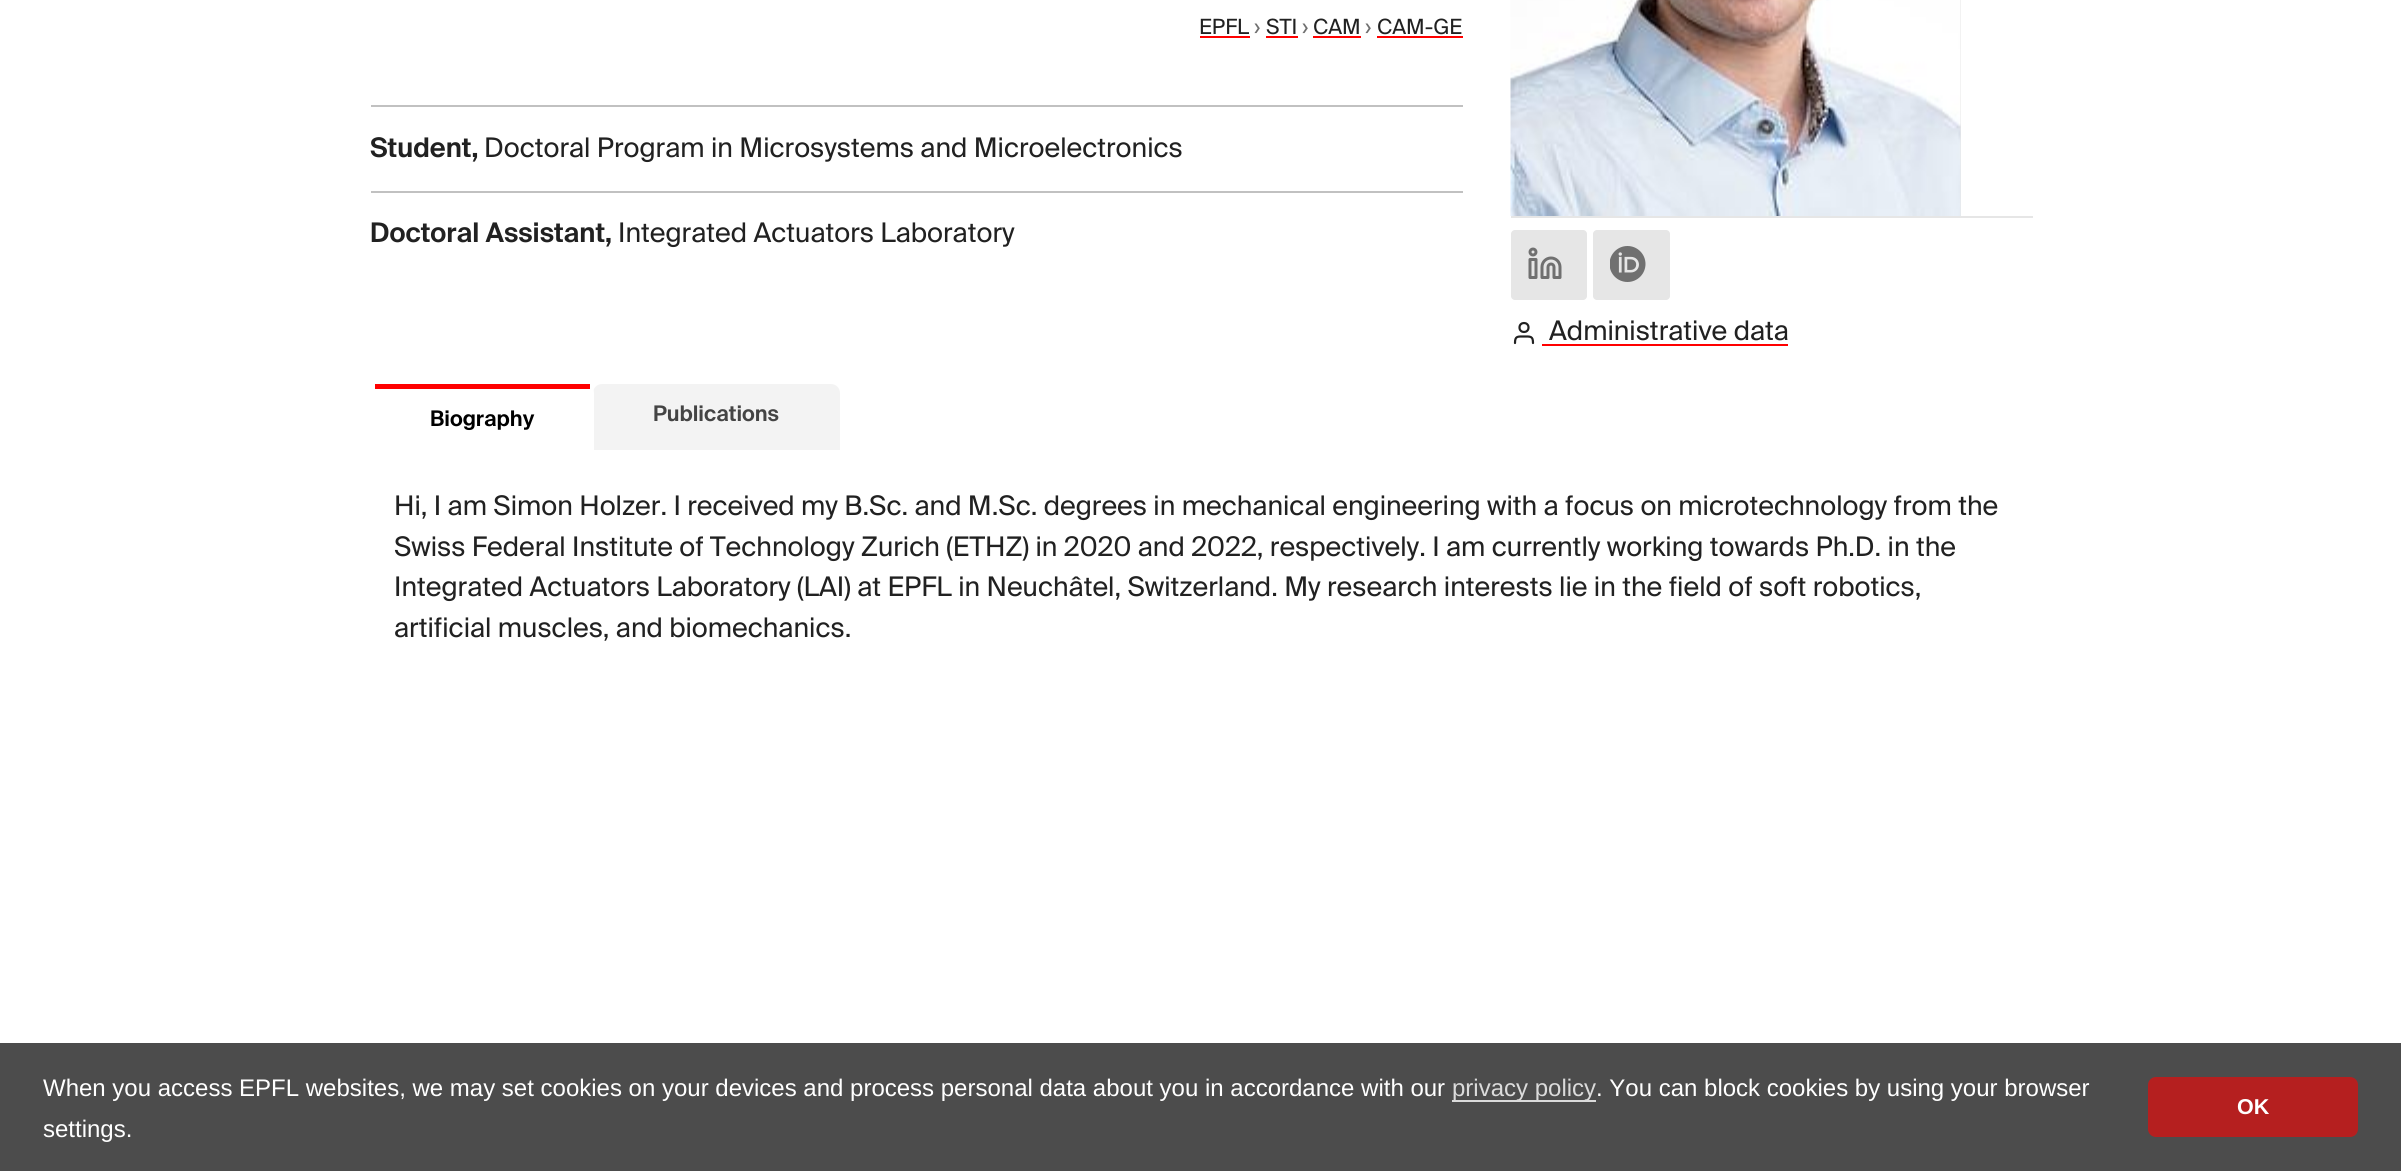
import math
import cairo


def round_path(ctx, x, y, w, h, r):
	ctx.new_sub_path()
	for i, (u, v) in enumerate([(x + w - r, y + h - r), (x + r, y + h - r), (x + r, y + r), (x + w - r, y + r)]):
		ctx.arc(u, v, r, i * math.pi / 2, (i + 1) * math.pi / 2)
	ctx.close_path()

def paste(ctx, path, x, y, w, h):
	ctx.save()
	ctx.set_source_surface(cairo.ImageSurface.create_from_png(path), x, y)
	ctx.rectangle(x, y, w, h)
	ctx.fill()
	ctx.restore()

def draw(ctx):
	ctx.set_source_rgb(1, 1, 1)
	ctx.paint()
	ctx.select_font_face('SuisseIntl')
	ctx.set_font_size(21)
	ctx.set_source_rgb(0.129, 0.129, 0.129)
	ctx.move_to(1199, 34)
	ctx.show_text('EPFL')
	ctx.set_source_rgb(0.439, 0.439, 0.439)
	ctx.move_to(1254, 34)
	ctx.show_text('›')
	ctx.set_source_rgb(1, 0, 0)
	ctx.rectangle(1200, 36, 50, 2)
	ctx.fill()
	ctx.set_source_rgb(0.129, 0.129, 0.129)
	ctx.move_to(1266, 34)
	ctx.show_text('STI')
	ctx.set_source_rgb(1, 0, 0)
	ctx.rectangle(1266, 36, 32, 2)
	ctx.fill()
	ctx.set_source_rgb(0.439, 0.439, 0.439)
	ctx.move_to(1302, 34)
	ctx.show_text('›')
	ctx.set_source_rgb(0.129, 0.129, 0.129)
	ctx.move_to(1313, 34)
	ctx.show_text('CAM')
	ctx.set_source_rgb(1, 0, 0)
	ctx.rectangle(1313, 36, 48, 2)
	ctx.fill()
	ctx.set_source_rgb(0.439, 0.439, 0.439)
	ctx.move_to(1365, 34)
	ctx.show_text('›')
	ctx.set_source_rgb(0.129, 0.129, 0.129)
	ctx.move_to(1377, 34)
	ctx.show_text('CAM-GE')
	ctx.set_source_rgb(1, 0, 0)
	ctx.rectangle(1377, 36, 86, 2)
	ctx.fill()
	ctx.set_source_rgb(0.757, 0.757, 0.757)
	ctx.rectangle(371, 105, 1092, 2)
	ctx.fill()
	ctx.select_font_face('SuisseIntl SemiBold')
	ctx.set_font_size(27)
	ctx.set_source_rgb(0.129, 0.129, 0.129)
	ctx.move_to(370, 157)
	ctx.show_text('Student,')
	ctx.select_font_face('SuisseIntl')
	ctx.move_to(484, 157)
	ctx.show_text('Doctoral Program in Microsystems and Microelectronics')
	ctx.set_source_rgb(0.757, 0.757, 0.757)
	ctx.rectangle(371, 191, 1092, 2)
	ctx.fill()
	ctx.select_font_face('SuisseIntl SemiBold')
	ctx.set_source_rgb(0.129, 0.129, 0.129)
	ctx.move_to(370, 242)
	ctx.show_text('Doctoral Assistant,')
	ctx.select_font_face('SuisseIntl')
	ctx.move_to(618, 242)
	ctx.show_text('Integrated Actuators Laboratory')
	ctx.set_source_rgb(0.902, 0.902, 0.902)
	ctx.rectangle(1960, 0, 1, 216)
	ctx.fill()
	paste(ctx, 'media/1.png', 1510, 0, 451, 216)
	ctx.rectangle(1511, 216, 522, 2)
	ctx.fill()
	round_path(ctx, 1511, 230, 76, 70, 4)
	ctx.fill()
	paste(ctx, 'media/2.png', 1528, 247, 34, 32)
	round_path(ctx, 1593, 230, 77, 70, 4)
	ctx.fill()
	paste(ctx, 'media/3.png', 1610, 246, 36, 36)
	ctx.new_path()
	ctx.move_to(1533, 343)
	ctx.curve_to(1533, 336, 1530.5, 336.5, 1524, 336.5)
	ctx.curve_to(1517.5, 336.5, 1515, 336, 1515, 343)
	ctx.set_source_rgb(0.129, 0.129, 0.129)
	ctx.set_line_width(2.2)
	ctx.set_line_cap(cairo.LINE_CAP_ROUND)
	ctx.set_line_join(cairo.LINE_JOIN_ROUND)
	ctx.stroke()
	ctx.arc(1524, 327.5, 4.5, 0, 2 * math.pi)
	ctx.set_line_cap(cairo.LINE_CAP_BUTT)
	ctx.set_line_join(cairo.LINE_JOIN_MITER)
	ctx.stroke()
	ctx.move_to(1549, 340)
	ctx.show_text('Administrative data')
	ctx.set_source_rgb(1, 0, 0)
	ctx.rectangle(1542, 344, 246, 2)
	ctx.fill()
	ctx.set_source_rgb(0.953, 0.953, 0.953)
	ctx.new_path()
	ctx.move_to(602, 384)
	ctx.line_to(831, 384)
	ctx.curve_to(836, 384, 840, 388, 840, 393)
	ctx.line_to(840, 450)
	ctx.line_to(593, 450)
	ctx.line_to(593, 393)
	ctx.curve_to(593, 388, 597, 384, 602, 384)
	ctx.close_path()
	ctx.fill()
	ctx.set_source_rgb(1, 1, 1)
	ctx.new_path()
	ctx.move_to(380, 384)
	ctx.line_to(585, 384)
	ctx.curve_to(590, 384, 594, 388, 594, 393)
	ctx.line_to(594, 450)
	ctx.line_to(371, 450)
	ctx.line_to(371, 393)
	ctx.curve_to(371, 388, 375, 384, 380, 384)
	ctx.close_path()
	ctx.fill()
	ctx.set_source_rgb(1, 0, 0)
	ctx.rectangle(375, 384, 215, 5)
	ctx.fill()
	ctx.select_font_face('SuisseIntl SemiBold')
	ctx.set_font_size(21.5)
	ctx.set_source_rgb(0, 0, 0)
	ctx.move_to(430, 426)
	ctx.show_text('Biography')
	ctx.set_source_rgb(0.267, 0.267, 0.267)
	ctx.move_to(653, 421)
	ctx.show_text('Publications')
	ctx.select_font_face('SuisseIntl')
	ctx.set_font_size(27)
	ctx.set_source_rgb(0.129, 0.129, 0.129)
	for x, y, s in [
		(394, 515, 'Hi, I am Simon Holzer. I received my B.Sc. and M.Sc. degrees in mechanical engineering with a focus on microtechnology from the'),
		(394, 556, 'Swiss Federal Institute of Technology Zurich (ETHZ) in 2020 and 2022, respectively. I am currently working towards Ph.D. in the'),
		(394, 596, 'Integrated Actuators Laboratory (LAI) at EPFL in Neuchâtel, Switzerland. My research interests lie in the field of soft robotics,'),
		(394, 637, 'artificial muscles, and biomechanics.'),
	]:
		ctx.move_to(x, y)
		ctx.show_text(s)
	ctx.set_source_rgb(0.298, 0.298, 0.298)
	ctx.rectangle(0, 1043, 2401, 128)
	ctx.fill()
	ctx.select_font_face('Liberation Sans')
	ctx.set_font_size(24)
	ctx.set_source_rgb(1, 1, 1)
	ctx.move_to(43, 1096)
	ctx.show_text('When you access EPFL websites, we may set cookies on your devices and process personal data about you in accordance with our')
	ctx.set_source_rgb(0.859, 0.859, 0.859)
	ctx.rectangle(1452, 1100, 144, 2)
	ctx.fill()
	ctx.move_to(1452, 1096)
	ctx.show_text('privacy policy')
	ctx.set_source_rgb(1, 1, 1)
	ctx.move_to(1596, 1096)
	ctx.show_text('. You can block cookies by using your browser')
	ctx.move_to(43, 1137)
	ctx.show_text('settings.')
	ctx.set_source_rgb(0.71, 0.122, 0.122)
	round_path(ctx, 2148, 1077, 210, 60, 8)
	ctx.fill()
	ctx.select_font_face('Liberation Sans', cairo.FONT_SLANT_NORMAL, cairo.FONT_WEIGHT_BOLD)
	ctx.set_font_size(21.5)
	ctx.set_source_rgb(1, 1, 1)
	ctx.move_to(2237, 1114)
	ctx.show_text('OK')


surface = cairo.ImageSurface(cairo.FORMAT_RGB24, 2401, 1171)
ctx = cairo.Context(surface)
options = cairo.FontOptions()
options.set_hint_metrics(cairo.HINT_METRICS_OFF)
options.set_hint_style(cairo.HINT_STYLE_NONE)
ctx.set_font_options(options)
ctx.set_miter_limit(4)
draw(ctx)
surface.write_to_png('image.png')
